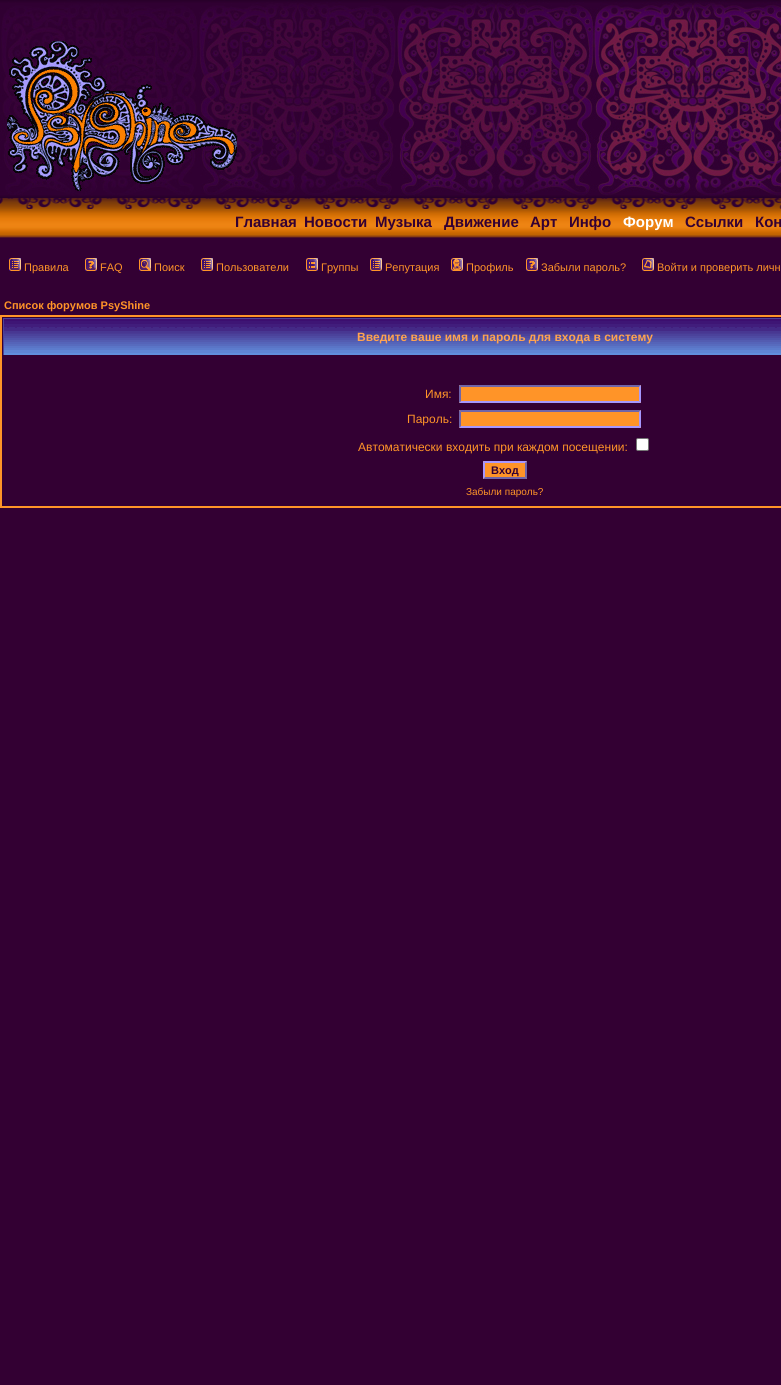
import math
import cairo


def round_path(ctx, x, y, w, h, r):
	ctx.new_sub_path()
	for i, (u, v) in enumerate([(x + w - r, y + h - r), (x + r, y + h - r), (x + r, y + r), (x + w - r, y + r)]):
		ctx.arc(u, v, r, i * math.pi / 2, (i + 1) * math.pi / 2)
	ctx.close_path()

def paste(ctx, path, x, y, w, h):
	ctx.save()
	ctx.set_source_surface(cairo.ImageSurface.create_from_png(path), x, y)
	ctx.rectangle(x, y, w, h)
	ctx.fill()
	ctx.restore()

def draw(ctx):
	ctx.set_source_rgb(0.2, 0, 0.2)
	ctx.paint()
	paste(ctx, 'media/1.png', 0, 0, 781, 198)
	paste(ctx, 'media/2.png', 0, 198, 781, 40)
	ctx.select_font_face('Liberation Sans', cairo.FONT_SLANT_NORMAL, cairo.FONT_WEIGHT_BOLD)
	ctx.set_font_size(15)
	ctx.set_source_rgb(0.2, 0, 0.2)
	for x, y, s in [
		(235, 227, 'Главная'),
		(304, 227, 'Новости'),
		(375, 227, 'Музыка'),
		(444, 227, 'Движение'),
		(530, 227, 'Арт'),
		(569, 227, 'Инфо'),
	]:
		ctx.move_to(x, y)
		ctx.show_text(s)
	ctx.set_source_rgb(1, 1, 1)
	ctx.move_to(623, 227)
	ctx.show_text('Форум')
	ctx.set_source_rgb(0.2, 0, 0.2)
	ctx.move_to(685, 227)
	ctx.show_text('Ссылки')
	ctx.move_to(755, 227)
	ctx.show_text('Кон')
	paste(ctx, 'media/3.png', 9, 258, 12, 13)
	ctx.select_font_face('Liberation Sans')
	ctx.set_font_size(11)
	ctx.set_source_rgb(1, 0.58, 0.157)
	ctx.move_to(24, 271)
	ctx.show_text('Правила')
	paste(ctx, 'media/4.png', 85, 258, 12, 13)
	ctx.move_to(100, 271)
	ctx.show_text('FAQ')
	paste(ctx, 'media/5.png', 139, 258, 12, 13)
	ctx.move_to(154, 271)
	ctx.show_text('Поиск')
	paste(ctx, 'media/3.png', 201, 258, 12, 13)
	ctx.move_to(216, 271)
	ctx.show_text('Пользователи')
	paste(ctx, 'media/6.png', 306, 258, 12, 13)
	ctx.move_to(321, 271)
	ctx.show_text('Группы')
	paste(ctx, 'media/3.png', 370, 258, 12, 13)
	ctx.move_to(385, 271)
	ctx.show_text('Репутация')
	paste(ctx, 'media/7.png', 451, 258, 12, 13)
	ctx.move_to(466, 271)
	ctx.show_text('Профиль')
	paste(ctx, 'media/4.png', 526, 258, 12, 13)
	ctx.move_to(541, 271)
	ctx.show_text('Забыли пароль?')
	paste(ctx, 'media/8.png', 642, 258, 12, 13)
	ctx.move_to(657, 271)
	ctx.show_text('Войти и проверить личн')
	ctx.select_font_face('Liberation Sans', cairo.FONT_SLANT_NORMAL, cairo.FONT_WEIGHT_BOLD)
	ctx.move_to(4, 309)
	ctx.show_text('Список форумов PsyShine')
	ctx.rectangle(1, 316, 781, 191)
	ctx.stroke()
	paste(ctx, 'media/9.png', 4, 319, 777, 36)
	ctx.set_source_rgb(0.294, 0.259, 0.608)
	ctx.rectangle(3, 318, 778, 1)
	ctx.fill()
	ctx.rectangle(3, 318, 1, 37)
	ctx.fill()
	ctx.set_font_size(12)
	ctx.set_source_rgb(1, 0.639, 0.31)
	ctx.move_to(357, 341)
	ctx.show_text('Введите ваше имя и пароль для входа в систему')
	ctx.select_font_face('Liberation Sans')
	ctx.set_source_rgb(1, 0.58, 0.157)
	ctx.move_to(425, 398)
	ctx.show_text('Имя:')
	ctx.rectangle(459, 385, 182, 18)
	ctx.fill()
	ctx.set_source_rgb(0.435, 0.396, 0.663)
	ctx.new_path()
	ctx.move_to(459, 385)
	ctx.line_to(641, 385)
	ctx.line_to(639, 387)
	ctx.line_to(461, 387)
	ctx.close_path()
	ctx.fill()
	ctx.set_source_rgb(0.651, 0.592, 0.996)
	ctx.new_path()
	ctx.move_to(641, 385)
	ctx.line_to(641, 403)
	ctx.line_to(639, 401)
	ctx.line_to(639, 387)
	ctx.close_path()
	ctx.fill()
	ctx.new_path()
	ctx.move_to(641, 403)
	ctx.line_to(459, 403)
	ctx.line_to(461, 401)
	ctx.line_to(639, 401)
	ctx.close_path()
	ctx.fill()
	ctx.set_source_rgb(0.435, 0.396, 0.663)
	ctx.new_path()
	ctx.move_to(459, 403)
	ctx.line_to(459, 385)
	ctx.line_to(461, 387)
	ctx.line_to(461, 401)
	ctx.close_path()
	ctx.fill()
	ctx.set_source_rgb(1, 0.58, 0.157)
	ctx.move_to(407, 423)
	ctx.show_text('Пароль:')
	ctx.rectangle(459, 410, 182, 18)
	ctx.fill()
	ctx.set_source_rgb(0.435, 0.396, 0.663)
	ctx.new_path()
	ctx.move_to(459, 410)
	ctx.line_to(641, 410)
	ctx.line_to(639, 412)
	ctx.line_to(461, 412)
	ctx.close_path()
	ctx.fill()
	ctx.set_source_rgb(0.651, 0.592, 0.996)
	ctx.new_path()
	ctx.move_to(641, 410)
	ctx.line_to(641, 428)
	ctx.line_to(639, 426)
	ctx.line_to(639, 412)
	ctx.close_path()
	ctx.fill()
	ctx.new_path()
	ctx.move_to(641, 428)
	ctx.line_to(459, 428)
	ctx.line_to(461, 426)
	ctx.line_to(639, 426)
	ctx.close_path()
	ctx.fill()
	ctx.set_source_rgb(0.435, 0.396, 0.663)
	ctx.new_path()
	ctx.move_to(459, 428)
	ctx.line_to(459, 410)
	ctx.line_to(461, 412)
	ctx.line_to(461, 426)
	ctx.close_path()
	ctx.fill()
	ctx.set_source_rgb(1, 0.58, 0.157)
	ctx.move_to(358, 451)
	ctx.show_text('Автоматически входить при каждом посещении:')
	ctx.set_source_rgb(1, 1, 1)
	round_path(ctx, 636.5, 438.5, 12, 12, 1.5)
	ctx.fill_preserve()
	ctx.set_source_rgb(0.463, 0.463, 0.463)
	ctx.set_line_width(1)
	ctx.stroke()
	ctx.set_source_rgb(1, 0.58, 0.157)
	ctx.rectangle(483, 461, 44, 18)
	ctx.fill()
	ctx.set_source_rgb(0.651, 0.592, 0.996)
	ctx.new_path()
	ctx.move_to(483, 461)
	ctx.line_to(527, 461)
	ctx.line_to(525, 463)
	ctx.line_to(485, 463)
	ctx.close_path()
	ctx.fill()
	ctx.set_source_rgb(0.435, 0.396, 0.663)
	ctx.new_path()
	ctx.move_to(527, 461)
	ctx.line_to(527, 479)
	ctx.line_to(525, 477)
	ctx.line_to(525, 463)
	ctx.close_path()
	ctx.fill()
	ctx.new_path()
	ctx.move_to(527, 479)
	ctx.line_to(483, 479)
	ctx.line_to(485, 477)
	ctx.line_to(525, 477)
	ctx.close_path()
	ctx.fill()
	ctx.set_source_rgb(0.651, 0.592, 0.996)
	ctx.new_path()
	ctx.move_to(483, 479)
	ctx.line_to(483, 461)
	ctx.line_to(485, 463)
	ctx.line_to(485, 477)
	ctx.close_path()
	ctx.fill()
	ctx.select_font_face('Liberation Sans', cairo.FONT_SLANT_NORMAL, cairo.FONT_WEIGHT_BOLD)
	ctx.set_font_size(11)
	ctx.set_source_rgb(0.2, 0, 0.2)
	ctx.move_to(491, 474)
	ctx.show_text('Вход')
	ctx.select_font_face('Liberation Sans')
	ctx.set_font_size(10)
	ctx.set_source_rgb(1, 0.58, 0.157)
	ctx.move_to(466, 495)
	ctx.show_text('Забыли пароль?')


surface = cairo.ImageSurface(cairo.FORMAT_RGB24, 781, 1385)
ctx = cairo.Context(surface)
options = cairo.FontOptions()
options.set_hint_metrics(cairo.HINT_METRICS_OFF)
options.set_hint_style(cairo.HINT_STYLE_NONE)
ctx.set_font_options(options)
ctx.set_miter_limit(4)
draw(ctx)
surface.write_to_png('image.png')
